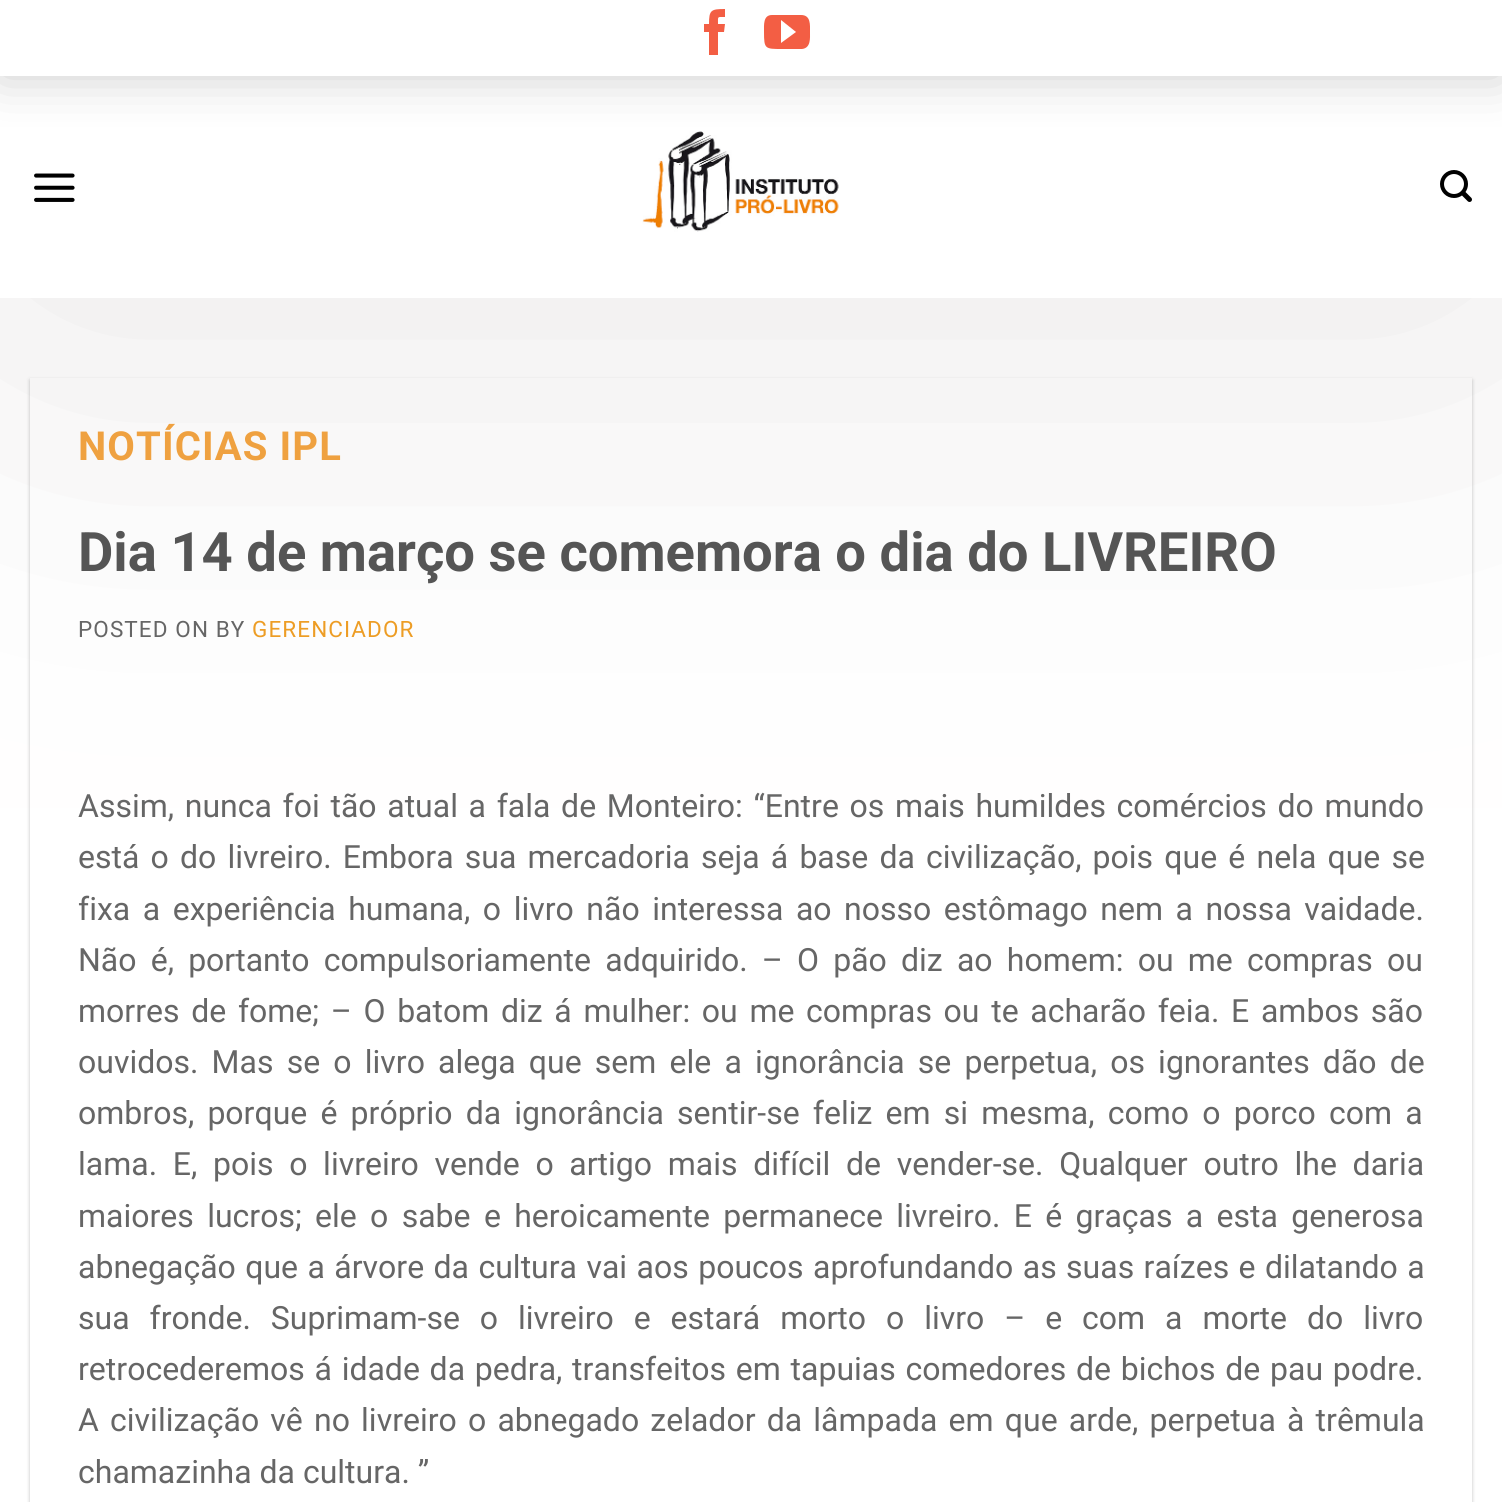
import math
import cairo


def write_spaced(ctx, x, y, s, letter, word):
	ctx.move_to(x, y)
	for ch in s:
		ctx.show_text(ch)
		ctx.rel_move_to(letter + word * (ch == ' '), 0)

def round_path(ctx, x, y, w, h, r):
	ctx.new_sub_path()
	for i, (u, v) in enumerate([(x + w - r, y + h - r), (x + r, y + h - r), (x + r, y + r), (x + w - r, y + r)]):
		ctx.arc(u, v, r, i * math.pi / 2, (i + 1) * math.pi / 2)
	ctx.close_path()

def blur_box(ctx, x, y, w, h, r, blur, alpha):
	ctx.push_group_with_content(cairo.CONTENT_ALPHA)
	ctx.set_operator(cairo.OPERATOR_SOURCE)
	for i in range(15, -16, -2):
		e = blur * i / 6
		if min(w, h) + 2 * e > 0:
			ctx.set_source_rgba(0, 0, 0, alpha * math.erfc((i - 1) / 8.5) / 2)
			round_path(ctx, x - e, y - e, w + 2 * e, h + 2 * e, max(0, min(r + e + blur * .6, min(w, h) / 2 + e)))
			ctx.fill()
	ctx.mask(ctx.pop_group())

def paste(ctx, path, x, y, w, h):
	ctx.save()
	ctx.set_source_surface(cairo.ImageSurface.create_from_png(path), x, y)
	ctx.rectangle(x, y, w, h)
	ctx.fill()
	ctx.restore()

def draw(ctx):
	ctx.set_source_rgb(1, 1, 1)
	ctx.paint()
	ctx.save()
	ctx.rectangle(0, 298, 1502, 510)
	ctx.clip()
	ctx.set_source_rgb(0.906, 0.898, 0.898)
	blur_box(ctx, 0, 0, 1502, 298, 0, 250, 1)
	ctx.restore()
	paste(ctx, 'media/2.png', 642, 131, 197, 101)
	ctx.save()
	ctx.rectangle(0, 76, 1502, 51)
	ctx.clip()
	ctx.set_source_rgb(0.8, 0.8, 0.8)
	blur_box(ctx, 0, 0, 1502, 76, 0, 25, 1)
	ctx.restore()
	ctx.set_source_rgb(0.953, 0.369, 0.267)
	ctx.new_path()
	ctx.move_to(718, 55)
	ctx.line_to(709, 55)
	ctx.line_to(709, 32)
	ctx.line_to(704, 32)
	ctx.line_to(704, 24)
	ctx.line_to(709, 24)
	ctx.curve_to(709, 10, 711, 9, 725, 9)
	ctx.line_to(725, 17)
	ctx.curve_to(717, 17, 718, 16, 718, 24)
	ctx.line_to(725, 24)
	ctx.line_to(724, 32)
	ctx.line_to(718, 32)
	ctx.close_path()
	ctx.fill()
	ctx.new_path()
	ctx.move_to(801, 15)
	ctx.line_to(772, 15)
	ctx.curve_to(763, 15, 764, 25, 764, 32)
	ctx.curve_to(764, 49, 765, 49, 782, 49)
	ctx.line_to(802, 49)
	ctx.curve_to(811, 48, 810, 38, 810, 32)
	ctx.curve_to(810, 25, 811, 15, 801, 15)
	ctx.close_path()
	ctx.move_to(781, 43)
	ctx.line_to(781, 20)
	ctx.line_to(796, 32)
	ctx.close_path()
	ctx.fill()
	paste(ctx, 'media/1.png', 34, 173, 41, 29)
	paste(ctx, 'media/3.png', 1440, 170, 32, 32)
	ctx.save()
	ctx.set_fill_rule(cairo.FILL_RULE_EVEN_ODD)
	ctx.new_path()
	ctx.move_to(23, 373)
	ctx.line_to(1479, 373)
	ctx.line_to(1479, 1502)
	ctx.line_to(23, 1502)
	ctx.close_path()
	ctx.move_to(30, 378)
	ctx.line_to(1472, 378)
	ctx.line_to(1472, 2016)
	ctx.line_to(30, 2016)
	ctx.close_path()
	ctx.clip()
	ctx.set_source_rgb(0, 0, 0)
	blur_box(ctx, 30, 380, 1442, 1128, 0, 2, 0.24)
	ctx.restore()
	ctx.select_font_face('Roboto', cairo.FONT_SLANT_NORMAL, cairo.FONT_WEIGHT_BOLD)
	ctx.set_font_size(40)
	ctx.set_source_rgb(0.937, 0.631, 0.251)
	write_spaced(ctx, 78, 460, 'NOTÍCIAS IPL', 1.1, 0)
	ctx.set_font_size(54.4)
	ctx.set_source_rgb(0.333, 0.333, 0.333)
	ctx.move_to(78, 571)
	ctx.show_text('Dia 14 de março se comemora o dia do LIVREIRO')
	ctx.select_font_face('Roboto')
	ctx.set_font_size(22.5)
	ctx.set_source_rgb(0.4, 0.4, 0.4)
	write_spaced(ctx, 78, 637, 'POSTED ON BY', 1.1, 0)
	ctx.set_source_rgb(0.929, 0.616, 0.145)
	write_spaced(ctx, 252, 637, 'GERENCIADOR', 1.1, 0)
	ctx.set_font_size(32)
	ctx.set_source_rgb(0.4, 0.4, 0.4)
	write_spaced(ctx, 78, 817, 'Assim, nunca foi tão atual a fala de Monteiro: “Entre os mais humildes comércios do mundo', 0, 2.75)
	write_spaced(ctx, 78, 868, 'está o do livreiro. Embora sua mercadoria seja á base da civilização, pois que é nela que se', 0, 3.25)
	write_spaced(ctx, 78, 920, 'fixa a experiência humana, o livro não interessa ao nosso estômago nem a nossa vaidade.', 0, 4.6)
	write_spaced(ctx, 78, 971, 'Não é, portanto compulsoriamente adquirido. – O pão diz ao homem: ou me compras ou', 0, 6.25)
	write_spaced(ctx, 78, 1022, 'morres de fome; – O batom diz á mulher: ou me compras ou te acharão feia. E ambos são', 0, 3.75)
	write_spaced(ctx, 78, 1073, 'ouvidos. Mas se o livro alega que sem ele a ignorância se perpetua, os ignorantes dão de', 0, 5.25)
	write_spaced(ctx, 78, 1124, 'ombros, porque é próprio da ignorância sentir-se feliz em si mesma, como o porco com a', 0, 5.25)
	write_spaced(ctx, 78, 1175, 'lama. E, pois o livreiro vende o artigo mais difícil de vender-se. Qualquer outro lhe daria', 0, 7.75)
	write_spaced(ctx, 78, 1227, 'maiores lucros; ele o sabe e heroicamente permanece livreiro. E é graças a esta generosa', 0, 5.4)
	write_spaced(ctx, 78, 1278, 'abnegação que a árvore da cultura vai aos poucos aprofundando as suas raízes e dilatando a', 0, 1.5)
	write_spaced(ctx, 78, 1329, 'sua fronde. Suprimam-se o livreiro e estará morto o livro – e com a morte do livro', 0, 12)
	write_spaced(ctx, 78, 1380, 'retrocederemos á idade da pedra, transfeitos em tapuias comedores de bichos de pau podre.', 0, 1.8)
	write_spaced(ctx, 78, 1431, 'A civilização vê no livreiro o abnegado zelador da lâmpada em que arde, perpetua à trêmula', 0, 3.25)
	ctx.move_to(78, 1483)
	ctx.show_text('chamazinha da cultura. ”')


surface = cairo.ImageSurface(cairo.FORMAT_RGB24, 1502, 1502)
ctx = cairo.Context(surface)
options = cairo.FontOptions()
options.set_hint_metrics(cairo.HINT_METRICS_OFF)
options.set_hint_style(cairo.HINT_STYLE_NONE)
ctx.set_font_options(options)
ctx.set_miter_limit(4)
draw(ctx)
surface.write_to_png('image.png')
